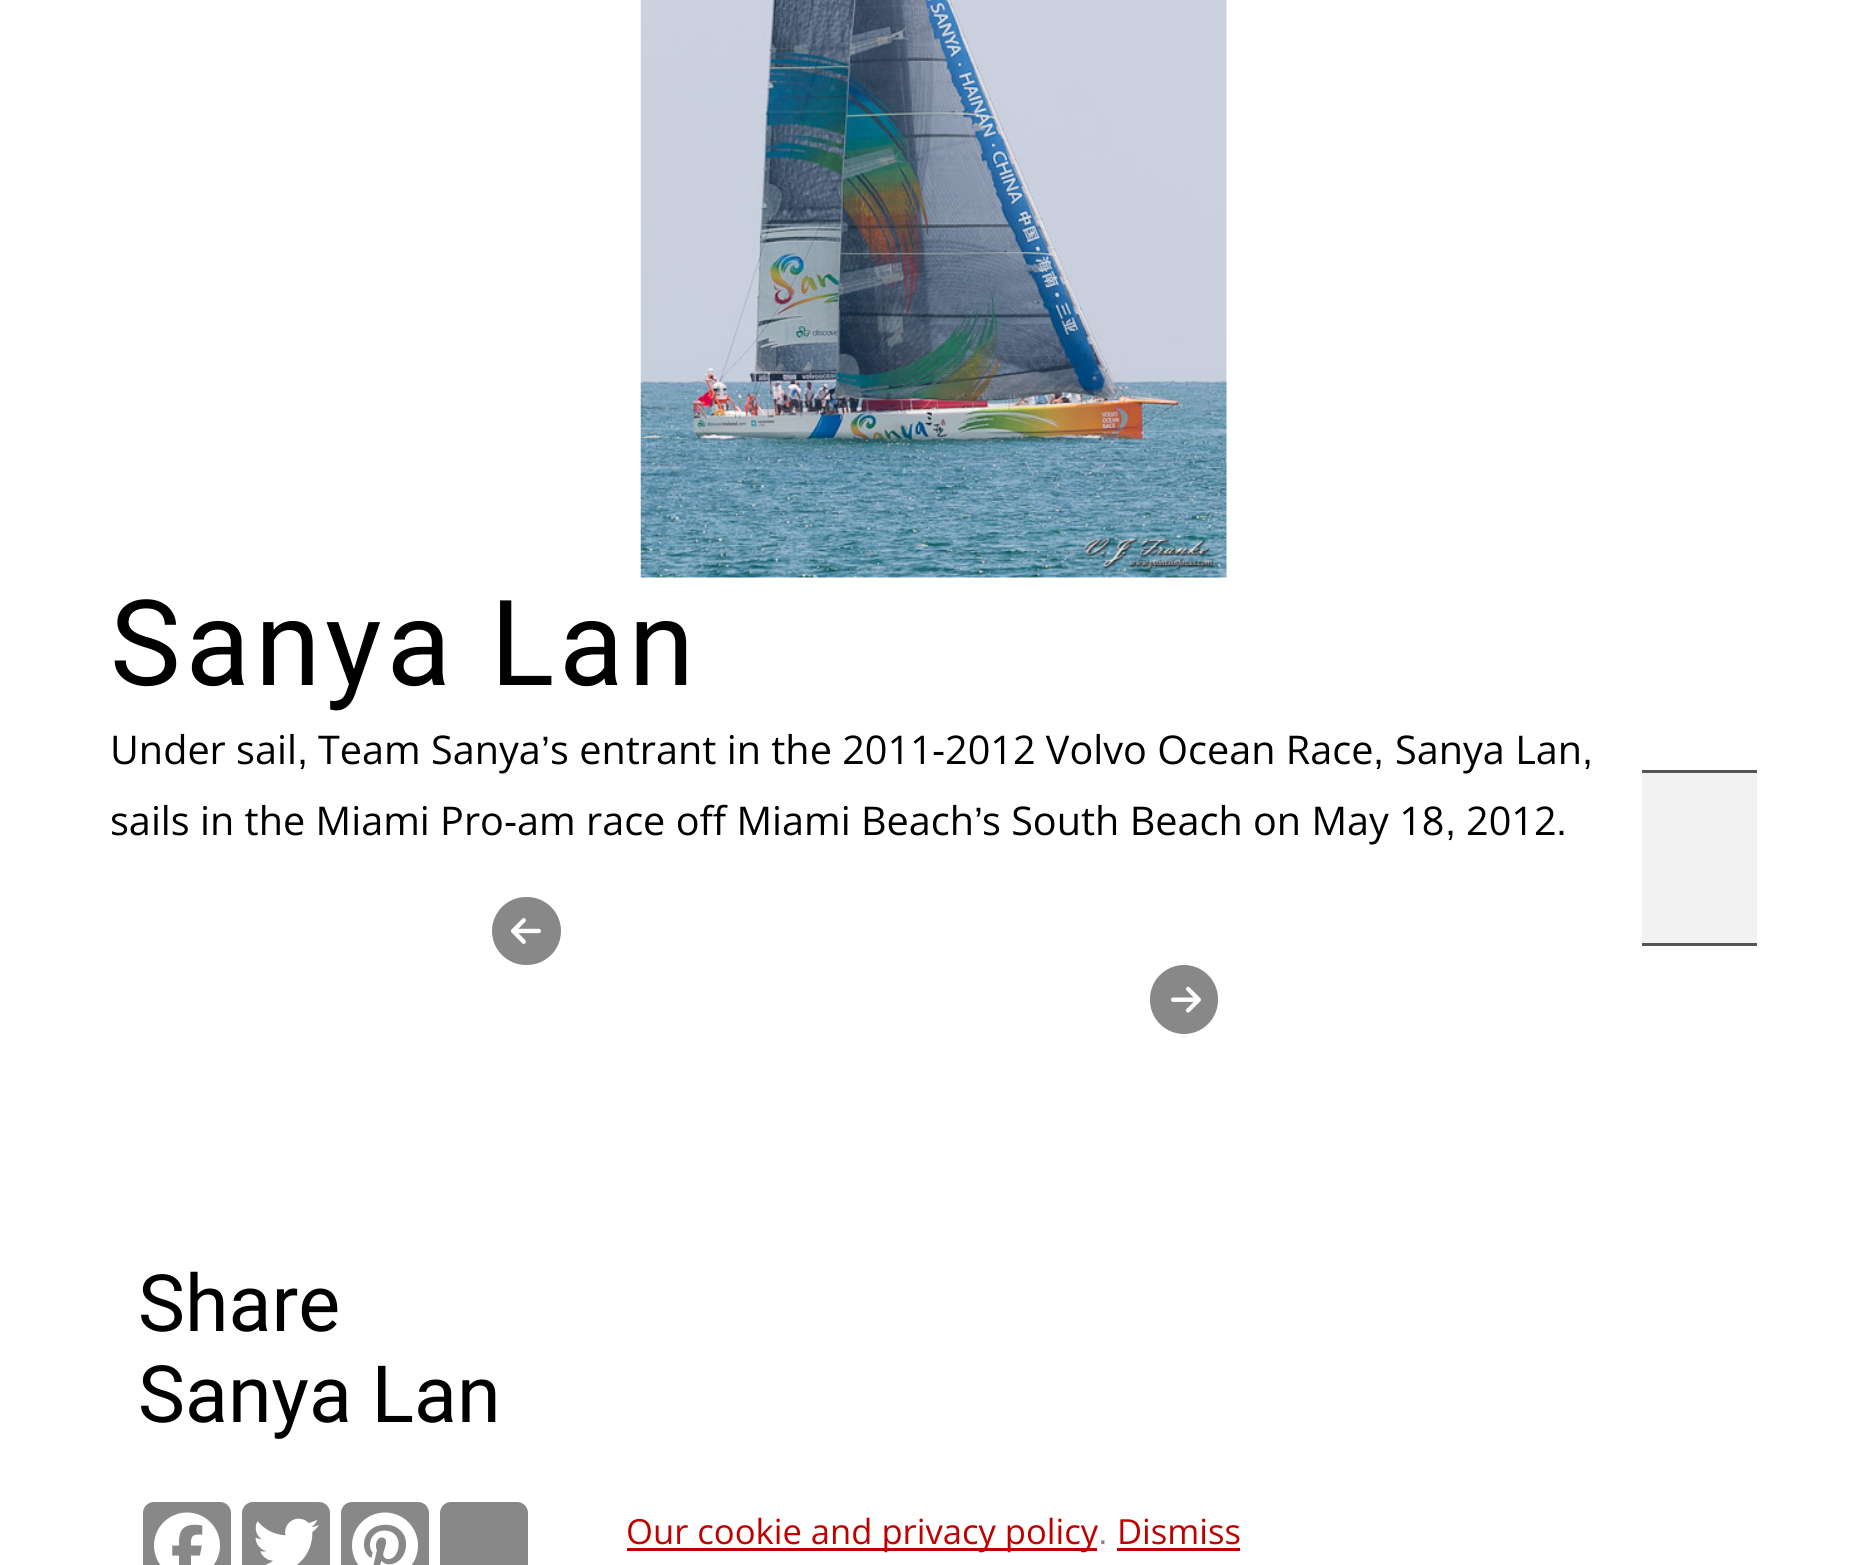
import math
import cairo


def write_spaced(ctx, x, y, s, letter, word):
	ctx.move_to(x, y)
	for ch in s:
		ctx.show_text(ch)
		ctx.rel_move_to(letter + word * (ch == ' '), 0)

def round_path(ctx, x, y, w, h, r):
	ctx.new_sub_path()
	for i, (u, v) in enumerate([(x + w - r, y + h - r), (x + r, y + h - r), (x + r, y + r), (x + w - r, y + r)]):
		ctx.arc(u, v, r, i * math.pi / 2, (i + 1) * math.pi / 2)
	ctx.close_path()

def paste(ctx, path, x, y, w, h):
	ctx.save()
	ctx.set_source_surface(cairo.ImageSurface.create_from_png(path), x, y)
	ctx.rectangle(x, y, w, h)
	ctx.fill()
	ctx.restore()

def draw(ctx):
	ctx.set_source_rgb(1, 1, 1)
	ctx.paint()
	paste(ctx, 'media/1.png', 640, 0, 587, 578)
	ctx.select_font_face('Roboto')
	ctx.set_font_size(119)
	ctx.set_source_rgb(0, 0, 0)
	write_spaced(ctx, 110, 685, 'Sanya Lan', 4.75, 0)
	ctx.select_font_face('Open Sans')
	ctx.set_font_size(39.6)
	ctx.move_to(110, 764)
	ctx.show_text('Under sail')
	ctx.move_to(318, 764)
	ctx.show_text('Team Sanya')
	ctx.select_font_face('Liberation Sans')
	ctx.move_to(541, 764)
	ctx.show_text('’')
	ctx.select_font_face('Open Sans')
	for x, y, s in [
		(550, 764, 's entrant in the 2011'),
		(945, 764, '2012 Volvo Ocean Race'),
		(1395, 764, 'Sanya Lan'),
	]:
		ctx.move_to(x, y)
		ctx.show_text(s)
	ctx.select_font_face('Liberation Sans')
	for x, y, s in [
		(932, 764, '-'),
		(297, 764, ','),
		(1373, 764, ','),
		(1582, 764, ','),
	]:
		ctx.move_to(x, y)
		ctx.show_text(s)
	ctx.select_font_face('Open Sans')
	ctx.move_to(110, 835)
	ctx.show_text('sails in the Miami Pro')
	ctx.move_to(517, 835)
	ctx.show_text('am race off Miami Beach')
	ctx.select_font_face('Liberation Sans')
	ctx.move_to(974, 835)
	ctx.show_text('’')
	ctx.select_font_face('Open Sans')
	ctx.move_to(982, 835)
	ctx.show_text('s South Beach on May 18')
	ctx.move_to(1466, 835)
	ctx.show_text('2012')
	ctx.select_font_face('Liberation Sans')
	for x, y, s in [
		(504, 835, '-'),
		(1445, 835, ','),
		(1556, 835, '.'),
	]:
		ctx.move_to(x, y)
		ctx.show_text(s)
	ctx.set_source_rgb(0.949, 0.949, 0.949)
	ctx.rectangle(1642, 773, 115, 170)
	ctx.fill()
	ctx.set_source_rgb(0.333, 0.333, 0.333)
	ctx.rectangle(1642, 770, 115, 3)
	ctx.rectangle(1642, 943, 115, 3)
	ctx.fill()
	ctx.set_source_rgb(0.533, 0.533, 0.533)
	round_path(ctx, 492, 897, 69, 68, 34)
	ctx.fill()
	paste(ctx, 'media/2.png', 511, 918, 30, 26)
	round_path(ctx, 1150, 965, 68, 69, 34)
	ctx.fill()
	paste(ctx, 'media/3.png', 1170, 986, 31, 27)
	ctx.select_font_face('Roboto')
	ctx.set_font_size(79)
	ctx.set_source_rgb(0, 0, 0)
	ctx.move_to(138, 1331)
	ctx.show_text('Share')
	ctx.move_to(138, 1422)
	ctx.show_text('Sanya Lan')
	ctx.set_source_rgb(0.533, 0.533, 0.533)
	round_path(ctx, 143, 1502, 88, 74, 11)
	ctx.fill()
	paste(ctx, 'media/4.png', 154, 1512, 66, 53)
	round_path(ctx, 242, 1502, 88, 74, 11)
	ctx.fill()
	paste(ctx, 'media/5.png', 255, 1518, 64, 47)
	round_path(ctx, 341, 1502, 88, 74, 11)
	ctx.fill()
	paste(ctx, 'media/6.png', 352, 1512, 66, 53)
	round_path(ctx, 440, 1502, 88, 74, 11)
	ctx.fill()
	ctx.set_source_rgb(0.753, 0, 0)
	ctx.rectangle(627, 1548, 470, 3)
	ctx.fill()
	ctx.select_font_face('Open Sans')
	ctx.set_font_size(34.6)
	ctx.move_to(626, 1544)
	ctx.show_text('Our cookie and privacy policy')
	ctx.select_font_face('Liberation Sans')
	ctx.set_source_rgb(0.533, 0.533, 0.533)
	ctx.move_to(1098, 1544)
	ctx.show_text('.')
	ctx.select_font_face('Open Sans')
	ctx.set_source_rgb(0.753, 0, 0)
	ctx.move_to(1117, 1544)
	ctx.show_text('Dismiss')
	ctx.rectangle(1117, 1548, 123, 3)
	ctx.fill()


surface = cairo.ImageSurface(cairo.FORMAT_RGB24, 1866, 1565)
ctx = cairo.Context(surface)
options = cairo.FontOptions()
options.set_hint_metrics(cairo.HINT_METRICS_OFF)
options.set_hint_style(cairo.HINT_STYLE_NONE)
ctx.set_font_options(options)
ctx.set_miter_limit(4)
draw(ctx)
surface.write_to_png('image.png')
